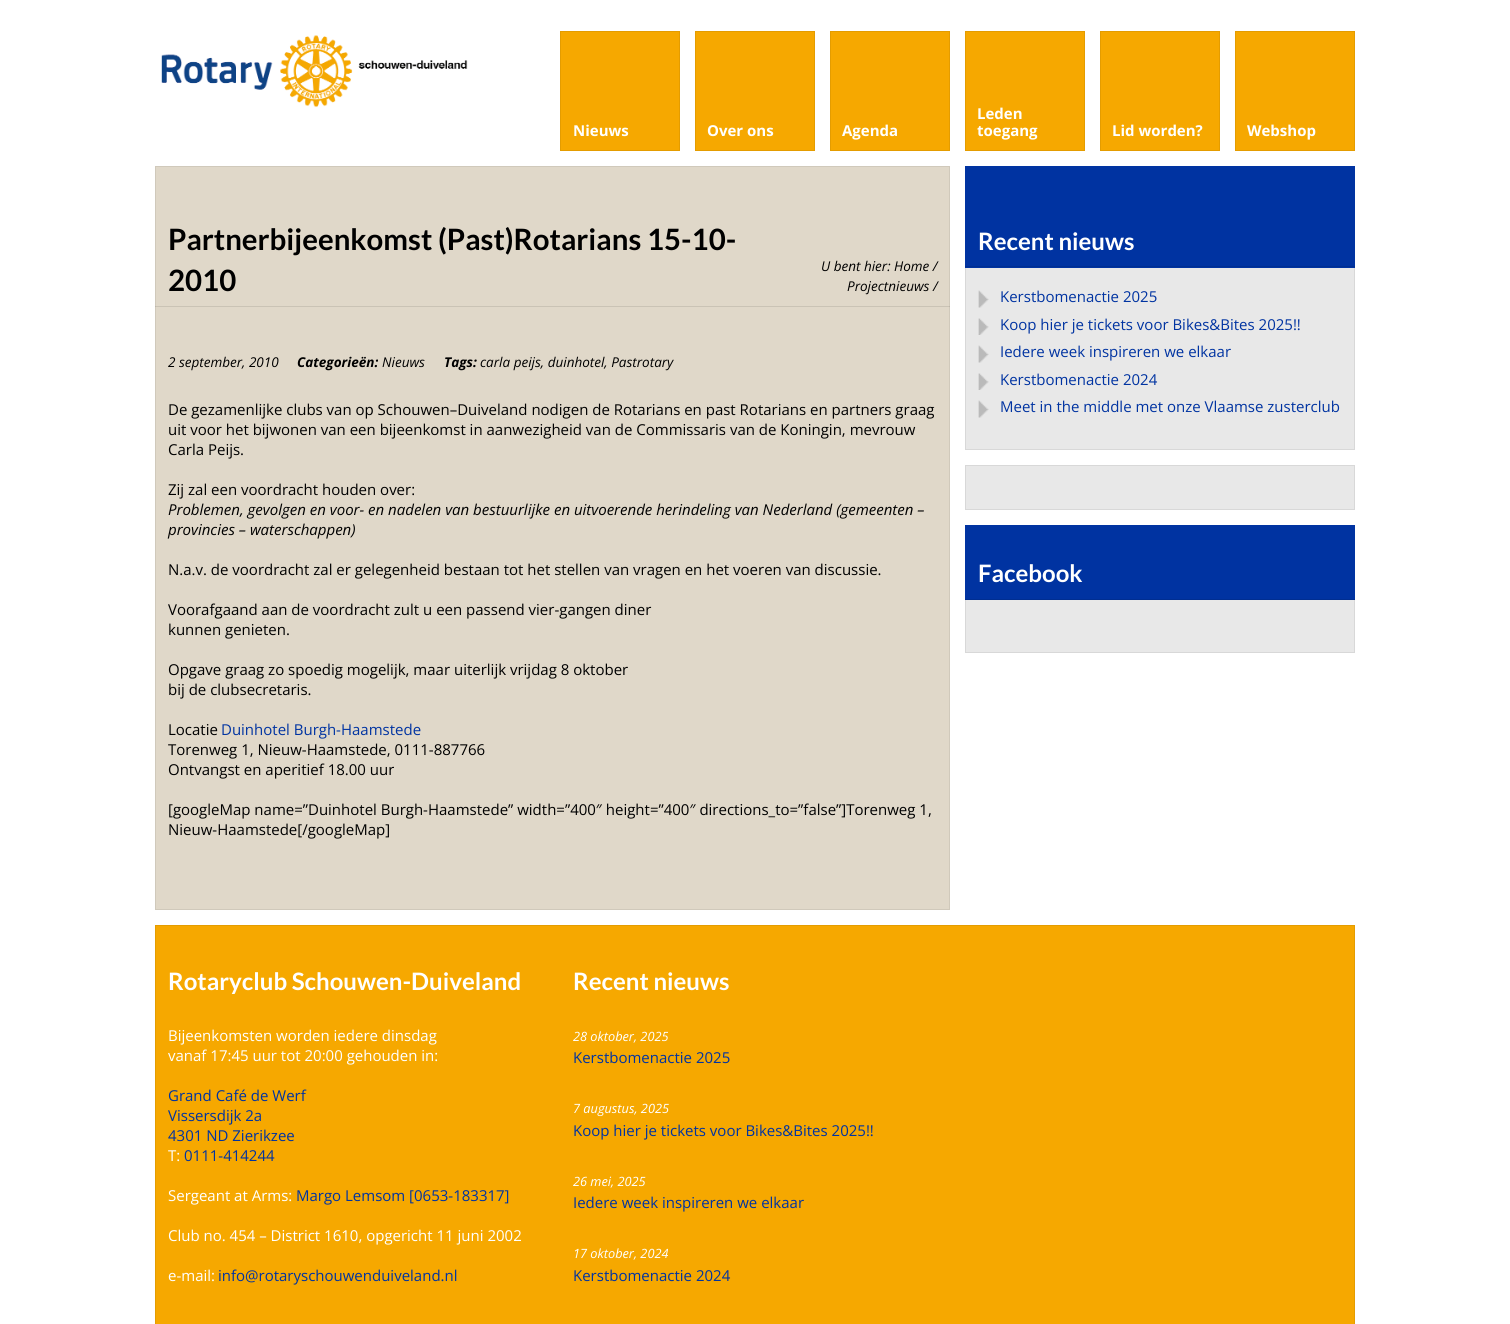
import math
import cairo


def paste(ctx, path, x, y, w, h):
	ctx.save()
	ctx.set_source_surface(cairo.ImageSurface.create_from_png(path), x, y)
	ctx.rectangle(x, y, w, h)
	ctx.fill()
	ctx.restore()

def draw(ctx):
	ctx.set_source_rgb(1, 1, 1)
	ctx.paint()
	paste(ctx, 'media/1.png', 161, 35, 307, 73)
	ctx.set_source_rgb(0.961, 0.659, 0)
	ctx.rectangle(560.5, 31.5, 119, 119)
	ctx.fill_preserve()
	ctx.set_source_rgb(0.894, 0.612, 0)
	ctx.set_line_width(1)
	ctx.stroke()
	ctx.select_font_face('Open Sans', cairo.FONT_SLANT_NORMAL, cairo.FONT_WEIGHT_BOLD)
	ctx.set_font_size(15)
	ctx.set_source_rgb(1, 1, 1)
	ctx.move_to(573, 136)
	ctx.show_text('Nieuws')
	ctx.set_source_rgb(0.961, 0.659, 0)
	ctx.rectangle(695.5, 31.5, 119, 119)
	ctx.fill_preserve()
	ctx.set_source_rgb(0.894, 0.612, 0)
	ctx.stroke()
	ctx.set_source_rgb(1, 1, 1)
	ctx.move_to(707, 136)
	ctx.show_text('Over ons')
	ctx.set_source_rgb(0.961, 0.659, 0)
	ctx.rectangle(830.5, 31.5, 119, 119)
	ctx.fill_preserve()
	ctx.set_source_rgb(0.894, 0.612, 0)
	ctx.stroke()
	ctx.set_source_rgb(1, 1, 1)
	ctx.move_to(842, 136)
	ctx.show_text('Agenda')
	ctx.set_source_rgb(0.961, 0.659, 0)
	ctx.rectangle(965.5, 31.5, 119, 119)
	ctx.fill_preserve()
	ctx.set_source_rgb(0.894, 0.612, 0)
	ctx.stroke()
	ctx.set_source_rgb(1, 1, 1)
	ctx.move_to(977, 119)
	ctx.show_text('Leden')
	ctx.move_to(977, 136)
	ctx.show_text('toegang')
	ctx.set_source_rgb(0.961, 0.659, 0)
	ctx.rectangle(1100.5, 31.5, 119, 119)
	ctx.fill_preserve()
	ctx.set_source_rgb(0.894, 0.612, 0)
	ctx.stroke()
	ctx.set_source_rgb(1, 1, 1)
	ctx.move_to(1112, 136)
	ctx.show_text('Lid worden?')
	ctx.set_source_rgb(0.961, 0.659, 0)
	ctx.rectangle(1235.5, 31.5, 119, 119)
	ctx.fill_preserve()
	ctx.set_source_rgb(0.894, 0.612, 0)
	ctx.stroke()
	ctx.set_source_rgb(1, 1, 1)
	ctx.move_to(1247, 136)
	ctx.show_text('Webshop')
	ctx.set_source_rgb(0.878, 0.847, 0.788)
	ctx.rectangle(155.5, 166.5, 794, 743)
	ctx.fill_preserve()
	ctx.set_source_rgb(0.816, 0.788, 0.733)
	ctx.stroke()
	ctx.select_font_face('Lato', cairo.FONT_SLANT_NORMAL, cairo.FONT_WEIGHT_BOLD)
	ctx.set_font_size(29.4)
	ctx.set_source_rgb(0, 0, 0)
	ctx.move_to(168, 250)
	ctx.show_text('Partnerbijeenkomst (Past)Rotarians 15-10-')
	ctx.move_to(168, 291)
	ctx.show_text('2010')
	ctx.select_font_face('Open Sans', cairo.FONT_SLANT_ITALIC)
	ctx.set_font_size(13.5)
	ctx.move_to(821, 271)
	ctx.show_text('U bent hier: Home /')
	ctx.move_to(847, 291)
	ctx.show_text('Projectnieuws /')
	ctx.set_source_rgba(0, 0, 0, 0.1)
	ctx.rectangle(155, 306, 795, 1)
	ctx.fill()
	ctx.set_source_rgb(0, 0, 0)
	ctx.move_to(168, 367)
	ctx.show_text('2 september, 2010')
	ctx.select_font_face('Open Sans', cairo.FONT_SLANT_ITALIC, cairo.FONT_WEIGHT_BOLD)
	ctx.move_to(297, 367)
	ctx.show_text('Categorieën:')
	ctx.select_font_face('Open Sans', cairo.FONT_SLANT_ITALIC)
	ctx.move_to(382, 367)
	ctx.show_text('Nieuws')
	ctx.select_font_face('Open Sans', cairo.FONT_SLANT_ITALIC, cairo.FONT_WEIGHT_BOLD)
	ctx.move_to(444, 367)
	ctx.show_text('Tags:')
	ctx.select_font_face('Open Sans', cairo.FONT_SLANT_ITALIC)
	ctx.move_to(480, 367)
	ctx.show_text('carla peijs, duinhotel, Pastrotary')
	ctx.select_font_face('Open Sans')
	ctx.set_font_size(15)
	for x, y, s in [
		(168, 415, 'De gezamenlijke clubs van op Schouwen–Duiveland nodigen de Rotarians en past Rotarians en partners graag'),
		(168, 435, 'uit voor het bijwonen van een bijeenkomst in aanwezigheid van de Commissaris van de Koningin, mevrouw'),
		(168, 455, 'Carla Peijs.'),
		(168, 495, 'Zij zal een voordracht houden over:'),
	]:
		ctx.move_to(x, y)
		ctx.show_text(s)
	ctx.select_font_face('Open Sans', cairo.FONT_SLANT_ITALIC)
	ctx.move_to(168, 515)
	ctx.show_text('Problemen, gevolgen en voor- en nadelen van bestuurlijke en uitvoerende herindeling van Nederland (gemeenten –')
	ctx.move_to(168, 535)
	ctx.show_text('provincies – waterschappen)')
	ctx.select_font_face('Open Sans')
	for x, y, s in [
		(168, 575, 'N.a.v. de voordracht zal er gelegenheid bestaan tot het stellen van vragen en het voeren van discussie.'),
		(168, 615, 'Voorafgaand aan de voordracht zult u een passend vier-gangen diner'),
		(168, 635, 'kunnen genieten.'),
		(168, 675, 'Opgave graag zo spoedig mogelijk, maar uiterlijk vrijdag 8 oktober'),
		(168, 695, 'bij de clubsecretaris.'),
		(168, 735, 'Locatie'),
	]:
		ctx.move_to(x, y)
		ctx.show_text(s)
	ctx.set_source_rgb(0, 0.2, 0.631)
	ctx.move_to(221, 735)
	ctx.show_text('Duinhotel Burgh-Haamstede')
	ctx.set_source_rgb(0, 0, 0)
	for x, y, s in [
		(168, 755, 'Torenweg 1, Nieuw-Haamstede, 0111-887766'),
		(168, 775, 'Ontvangst en aperitief 18.00 uur'),
		(168, 815, '[googleMap name=”Duinhotel Burgh-Haamstede” width=”400″ height=”400″ directions_to=”false”]Torenweg 1,'),
		(168, 835, 'Nieuw-Haamstede[/googleMap]'),
	]:
		ctx.move_to(x, y)
		ctx.show_text(s)
	ctx.set_source_rgb(0.91, 0.91, 0.91)
	ctx.rectangle(966, 268, 388, 181)
	ctx.fill()
	ctx.rectangle(965.5, 166.5, 389, 283)
	ctx.set_source_rgb(0.847, 0.847, 0.847)
	ctx.stroke()
	ctx.set_source_rgb(0, 0.2, 0.631)
	ctx.rectangle(965, 166, 390, 102)
	ctx.fill()
	ctx.set_source_rgb(0, 0.18, 0.569)
	ctx.rectangle(965, 266, 390, 1)
	ctx.fill()
	ctx.select_font_face('Lato', cairo.FONT_SLANT_NORMAL, cairo.FONT_WEIGHT_BOLD)
	ctx.set_font_size(24)
	ctx.set_source_rgb(1, 1, 1)
	ctx.move_to(978, 250)
	ctx.show_text('Recent nieuws')
	paste(ctx, 'media/2.png', 978, 290, 11, 18)
	ctx.select_font_face('Open Sans')
	ctx.set_font_size(15)
	ctx.set_source_rgb(0, 0.2, 0.631)
	ctx.move_to(1000, 302)
	ctx.show_text('Kerstbomenactie 2025')
	paste(ctx, 'media/3.png', 978, 318, 11, 17)
	ctx.move_to(1000, 330)
	ctx.show_text('Koop hier je tickets voor Bikes&Bites 2025!!')
	paste(ctx, 'media/4.png', 978, 345, 11, 18)
	ctx.move_to(1000, 357)
	ctx.show_text('Iedere week inspireren we elkaar')
	paste(ctx, 'media/3.png', 978, 373, 11, 17)
	ctx.move_to(1000, 385)
	ctx.show_text('Kerstbomenactie 2024')
	paste(ctx, 'media/4.png', 978, 400, 11, 18)
	ctx.move_to(1000, 412)
	ctx.show_text('Meet in the middle met onze Vlaamse zusterclub')
	ctx.set_source_rgb(0.91, 0.91, 0.91)
	ctx.rectangle(965.5, 465.5, 389, 44)
	ctx.fill_preserve()
	ctx.set_source_rgb(0.847, 0.847, 0.847)
	ctx.stroke()
	ctx.set_source_rgb(0.91, 0.91, 0.91)
	ctx.rectangle(966, 600, 388, 52)
	ctx.fill()
	ctx.rectangle(965.5, 525.5, 389, 127)
	ctx.set_source_rgb(0.847, 0.847, 0.847)
	ctx.stroke()
	ctx.set_source_rgb(0, 0.2, 0.631)
	ctx.rectangle(965, 525, 390, 74)
	ctx.fill()
	ctx.set_source_rgb(0, 0.18, 0.569)
	ctx.rectangle(965, 599, 390, 1)
	ctx.fill()
	ctx.select_font_face('Lato', cairo.FONT_SLANT_NORMAL, cairo.FONT_WEIGHT_BOLD)
	ctx.set_font_size(24)
	ctx.set_source_rgb(1, 1, 1)
	ctx.move_to(978, 582)
	ctx.show_text('Facebook')
	ctx.set_source_rgb(0.961, 0.659, 0)
	ctx.rectangle(155.5, 925.5, 1199, 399)
	ctx.fill_preserve()
	ctx.set_source_rgb(0.894, 0.612, 0)
	ctx.stroke()
	ctx.set_source_rgb(1, 1, 1)
	ctx.move_to(168, 990)
	ctx.show_text('Rotaryclub Schouwen-Duiveland')
	ctx.select_font_face('Open Sans')
	ctx.set_font_size(15)
	ctx.move_to(168, 1041)
	ctx.show_text('Bijeenkomsten worden iedere dinsdag')
	ctx.move_to(168, 1061)
	ctx.show_text('vanaf 17:45 uur tot 20:00 gehouden in:')
	ctx.set_source_rgb(0, 0.2, 0.631)
	for x, y, s in [
		(168, 1101, 'Grand Café de Werf'),
		(168, 1121, 'Vissersdijk 2a'),
		(168, 1141, '4301 ND Zierikzee'),
	]:
		ctx.move_to(x, y)
		ctx.show_text(s)
	ctx.set_source_rgb(1, 1, 1)
	ctx.move_to(168, 1161)
	ctx.show_text('T:')
	ctx.set_source_rgb(0, 0.2, 0.631)
	ctx.move_to(184, 1161)
	ctx.show_text('0111-414244')
	ctx.set_source_rgb(1, 1, 1)
	ctx.move_to(168, 1201)
	ctx.show_text('Sergeant at Arms:')
	ctx.set_source_rgb(0, 0.2, 0.631)
	ctx.move_to(296, 1201)
	ctx.show_text('Margo Lemsom [0653-183317]')
	ctx.set_source_rgb(1, 1, 1)
	ctx.move_to(168, 1241)
	ctx.show_text('Club no. 454 – District 1610, opgericht 11 juni 2002')
	ctx.move_to(168, 1281)
	ctx.show_text('e-mail:')
	ctx.set_source_rgb(0, 0.2, 0.631)
	ctx.move_to(218, 1281)
	ctx.show_text('info@rotaryschouwenduiveland.nl')
	ctx.select_font_face('Lato', cairo.FONT_SLANT_NORMAL, cairo.FONT_WEIGHT_BOLD)
	ctx.set_font_size(24)
	ctx.set_source_rgb(1, 1, 1)
	ctx.move_to(573, 990)
	ctx.show_text('Recent nieuws')
	ctx.select_font_face('Open Sans', cairo.FONT_SLANT_ITALIC)
	ctx.set_font_size(12.75)
	ctx.move_to(573, 1041)
	ctx.show_text('28 oktober, 2025')
	ctx.select_font_face('Open Sans')
	ctx.set_font_size(15)
	ctx.set_source_rgb(0, 0.2, 0.631)
	ctx.move_to(573, 1063)
	ctx.show_text('Kerstbomenactie 2025')
	ctx.select_font_face('Open Sans', cairo.FONT_SLANT_ITALIC)
	ctx.set_font_size(12.75)
	ctx.set_source_rgb(1, 1, 1)
	ctx.move_to(573, 1113)
	ctx.show_text('7 augustus, 2025')
	ctx.select_font_face('Open Sans')
	ctx.set_font_size(15)
	ctx.set_source_rgb(0, 0.2, 0.631)
	ctx.move_to(573, 1136)
	ctx.show_text('Koop hier je tickets voor Bikes&Bites 2025!!')
	ctx.select_font_face('Open Sans', cairo.FONT_SLANT_ITALIC)
	ctx.set_font_size(12.75)
	ctx.set_source_rgb(1, 1, 1)
	ctx.move_to(573, 1186)
	ctx.show_text('26 mei, 2025')
	ctx.select_font_face('Open Sans')
	ctx.set_font_size(15)
	ctx.set_source_rgb(0, 0.2, 0.631)
	ctx.move_to(573, 1208)
	ctx.show_text('Iedere week inspireren we elkaar')
	ctx.select_font_face('Open Sans', cairo.FONT_SLANT_ITALIC)
	ctx.set_font_size(12.75)
	ctx.set_source_rgb(1, 1, 1)
	ctx.move_to(573, 1258)
	ctx.show_text('17 oktober, 2024')
	ctx.select_font_face('Open Sans')
	ctx.set_font_size(15)
	ctx.set_source_rgb(0, 0.2, 0.631)
	ctx.move_to(573, 1281)
	ctx.show_text('Kerstbomenactie 2024')


surface = cairo.ImageSurface(cairo.FORMAT_RGB24, 1510, 1324)
ctx = cairo.Context(surface)
options = cairo.FontOptions()
options.set_hint_metrics(cairo.HINT_METRICS_OFF)
options.set_hint_style(cairo.HINT_STYLE_NONE)
ctx.set_font_options(options)
ctx.set_miter_limit(4)
draw(ctx)
surface.write_to_png('image.png')
